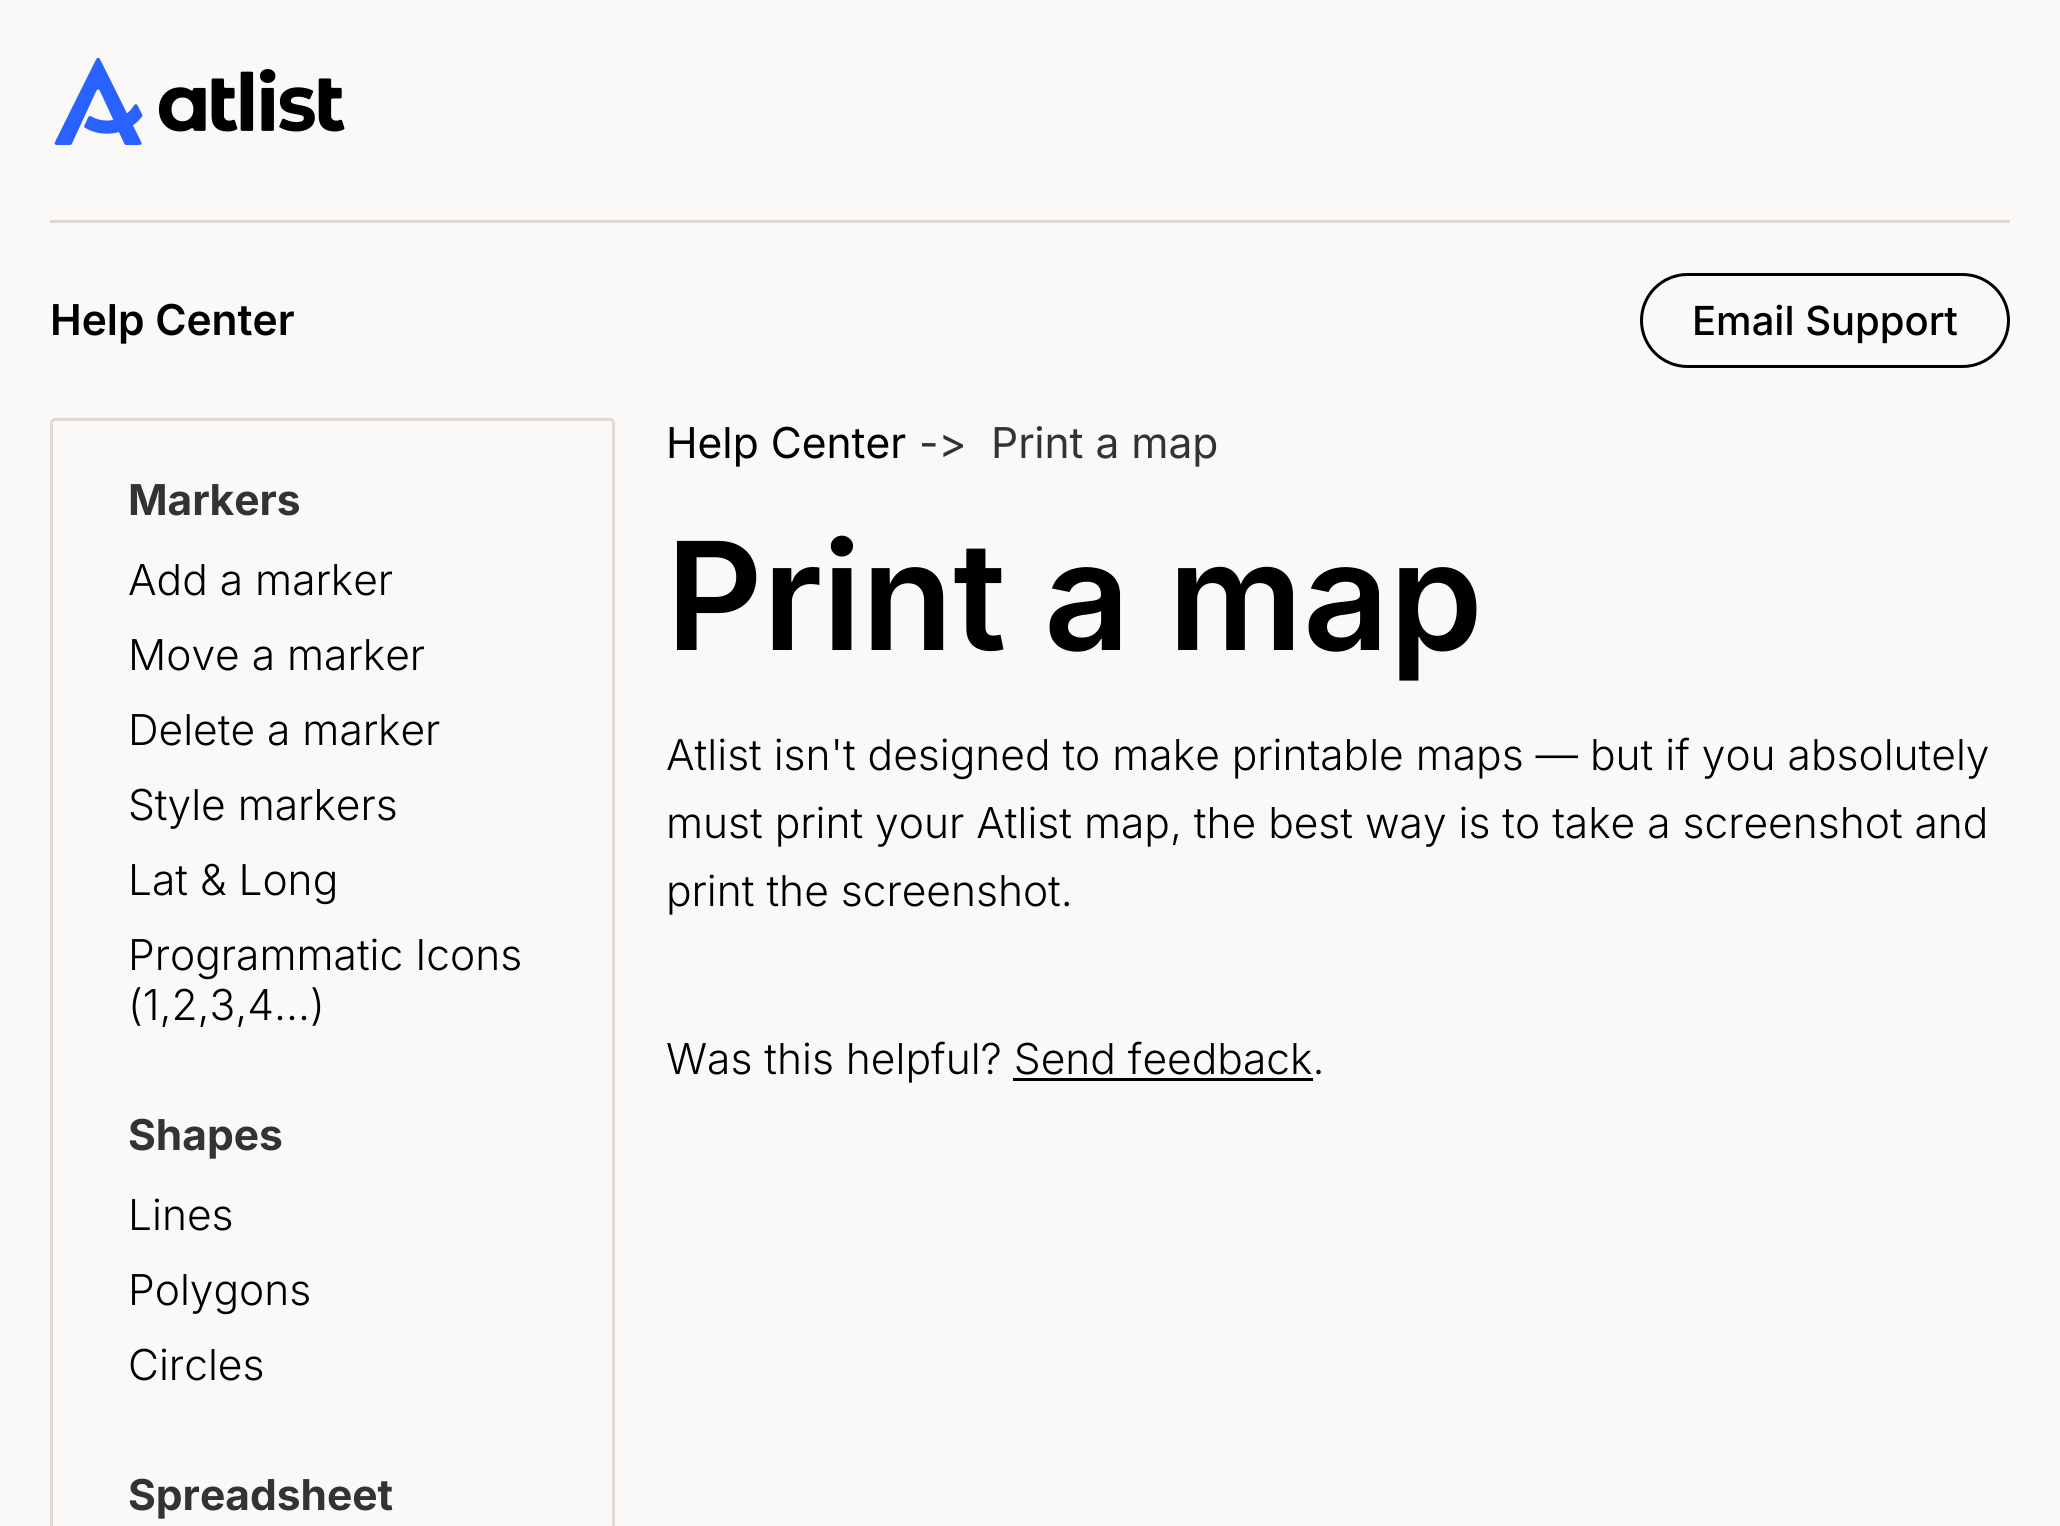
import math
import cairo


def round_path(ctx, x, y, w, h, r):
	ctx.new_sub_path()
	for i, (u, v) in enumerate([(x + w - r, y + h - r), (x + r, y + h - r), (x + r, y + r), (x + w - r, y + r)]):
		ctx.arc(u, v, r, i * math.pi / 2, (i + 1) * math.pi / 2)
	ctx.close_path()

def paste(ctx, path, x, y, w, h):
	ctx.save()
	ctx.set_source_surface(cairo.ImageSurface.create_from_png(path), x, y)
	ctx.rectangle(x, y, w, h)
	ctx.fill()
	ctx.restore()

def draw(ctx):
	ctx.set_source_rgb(0.98, 0.973, 0.965)
	ctx.paint()
	paste(ctx, 'media/1.png', 54, 58, 291, 87)
	ctx.set_source_rgb(0.875, 0.851, 0.827)
	ctx.rectangle(50, 220, 1960, 3)
	ctx.fill()
	ctx.select_font_face('Inter SemiBold')
	ctx.set_font_size(42.5)
	ctx.set_source_rgb(0, 0, 0)
	ctx.move_to(50, 335)
	ctx.show_text('Help Center')
	round_path(ctx, 1641.5, 274.5, 367, 92, 46)
	ctx.set_line_width(3)
	ctx.stroke()
	ctx.select_font_face('Inter Medium')
	ctx.set_font_size(40)
	ctx.move_to(1692, 335)
	ctx.show_text('Email Support')
	round_path(ctx, 51.5, 419.5, 562, 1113, 3.5)
	ctx.set_source_rgb(0.875, 0.851, 0.827)
	ctx.stroke()
	ctx.select_font_face('Inter', cairo.FONT_SLANT_NORMAL, cairo.FONT_WEIGHT_BOLD)
	ctx.set_font_size(42.5)
	ctx.set_source_rgb(0.2, 0.2, 0.2)
	ctx.move_to(128, 515)
	ctx.show_text('Markers')
	ctx.select_font_face('Inter Light')
	ctx.set_source_rgb(0, 0, 0)
	for x, y, s in [
		(128, 595, 'Add a marker'),
		(128, 670, 'Move a marker'),
		(128, 745, 'Delete a marker'),
		(128, 820, 'Style markers'),
		(128, 895, 'Lat & Long'),
		(128, 970, 'Programmatic Icons'),
		(128, 1020, '(1,2,3,4...)'),
	]:
		ctx.move_to(x, y)
		ctx.show_text(s)
	ctx.select_font_face('Inter', cairo.FONT_SLANT_NORMAL, cairo.FONT_WEIGHT_BOLD)
	ctx.set_source_rgb(0.2, 0.2, 0.2)
	ctx.move_to(128, 1150)
	ctx.show_text('Shapes')
	ctx.select_font_face('Inter Light')
	ctx.set_source_rgb(0, 0, 0)
	for x, y, s in [
		(128, 1230, 'Lines'),
		(128, 1305, 'Polygons'),
		(128, 1380, 'Circles'),
	]:
		ctx.move_to(x, y)
		ctx.show_text(s)
	ctx.select_font_face('Inter', cairo.FONT_SLANT_NORMAL, cairo.FONT_WEIGHT_BOLD)
	ctx.set_source_rgb(0.2, 0.2, 0.2)
	ctx.move_to(128, 1510)
	ctx.show_text('Spreadsheet')
	ctx.select_font_face('Inter')
	ctx.set_source_rgb(0, 0, 0)
	ctx.move_to(666, 458)
	ctx.show_text('Help Center')
	ctx.set_source_rgb(0.2, 0.2, 0.2)
	ctx.move_to(919, 458)
	ctx.show_text('->')
	ctx.move_to(991, 458)
	ctx.show_text('Print a map')
	ctx.select_font_face('Inter SemiBold')
	ctx.set_font_size(150)
	ctx.set_source_rgb(0, 0, 0)
	ctx.move_to(666, 650)
	ctx.show_text('Print a map')
	ctx.select_font_face('Inter Light')
	ctx.set_font_size(42.5)
	for x, y, s in [
		(666, 770, 'Atlist isn\'t designed to make printable maps — but if you absolutely'),
		(666, 838, 'must print your Atlist map, the best way is to take a screenshot and'),
		(666, 906, 'print the screenshot.'),
		(666, 1074, 'Was this helpful? Send feedback.'),
	]:
		ctx.move_to(x, y)
		ctx.show_text(s)
	ctx.rectangle(1013, 1078, 300, 3)
	ctx.fill()


surface = cairo.ImageSurface(cairo.FORMAT_RGB24, 2060, 1526)
ctx = cairo.Context(surface)
options = cairo.FontOptions()
options.set_hint_metrics(cairo.HINT_METRICS_OFF)
options.set_hint_style(cairo.HINT_STYLE_NONE)
ctx.set_font_options(options)
ctx.set_miter_limit(4)
draw(ctx)
surface.write_to_png('image.png')
